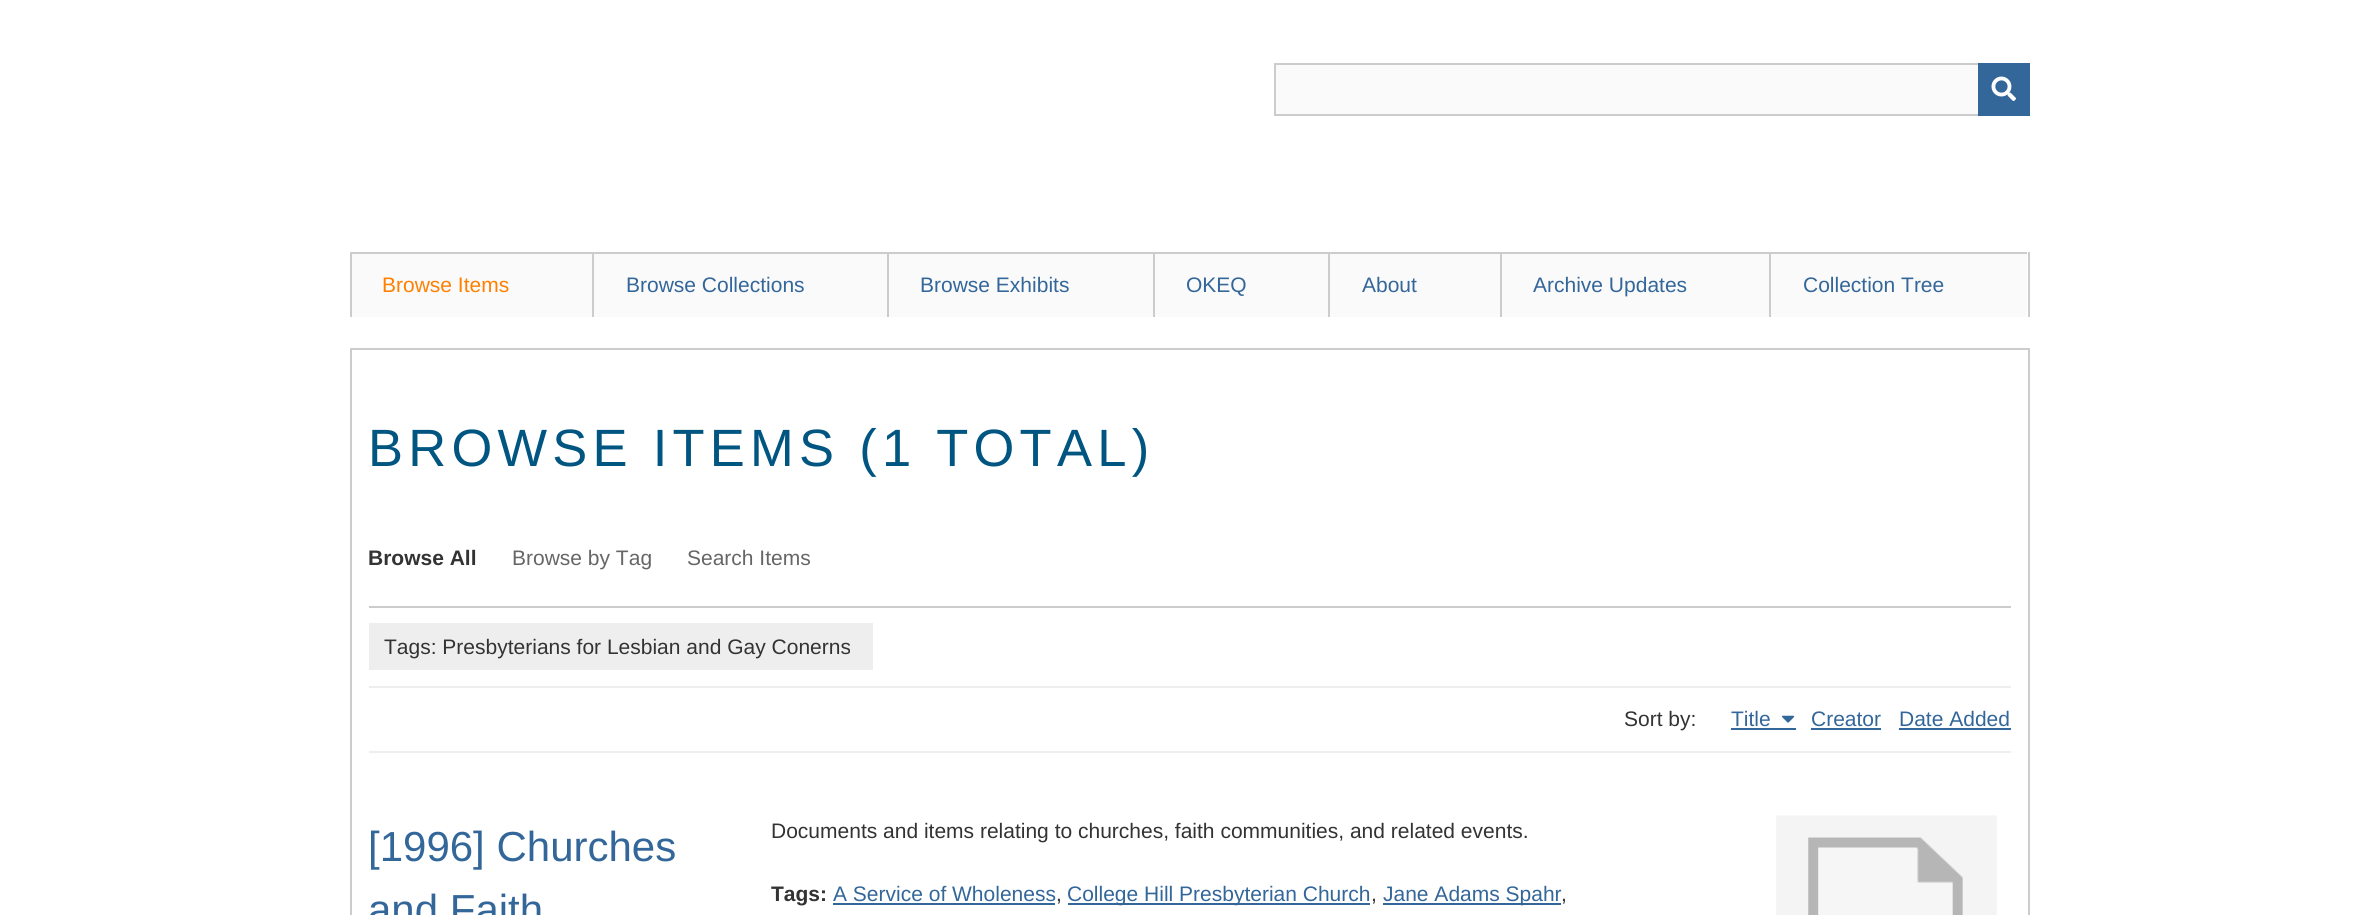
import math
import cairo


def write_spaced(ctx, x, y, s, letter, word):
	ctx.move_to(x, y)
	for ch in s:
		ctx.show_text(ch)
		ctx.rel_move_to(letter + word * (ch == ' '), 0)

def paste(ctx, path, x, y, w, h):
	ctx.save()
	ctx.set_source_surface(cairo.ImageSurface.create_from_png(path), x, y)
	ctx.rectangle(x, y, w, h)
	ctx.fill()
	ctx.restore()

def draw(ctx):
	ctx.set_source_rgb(1, 1, 1)
	ctx.paint()
	ctx.set_source_rgb(0.98, 0.98, 0.98)
	ctx.rectangle(1276, 65, 702, 49)
	ctx.fill()
	ctx.rectangle(1275, 64, 754, 51)
	ctx.set_source_rgb(0.8, 0.8, 0.8)
	ctx.stroke()
	ctx.set_source_rgb(0.2, 0.4, 0.6)
	ctx.rectangle(1978, 63, 52, 53)
	ctx.fill()
	paste(ctx, 'media/1.png', 1991, 76, 25, 25)
	ctx.set_source_rgb(0.8, 0.8, 0.8)
	ctx.rectangle(2028, 252, 2, 65)
	ctx.fill()
	ctx.set_source_rgb(0.98, 0.98, 0.98)
	ctx.rectangle(352, 254, 240, 63)
	ctx.fill()
	ctx.set_source_rgb(0.8, 0.8, 0.8)
	ctx.rectangle(350, 252, 1677, 2)
	ctx.rectangle(350, 252, 2, 65)
	ctx.fill()
	ctx.select_font_face('Liberation Sans')
	ctx.set_font_size(21)
	ctx.set_source_rgb(1, 0.502, 0)
	ctx.move_to(382, 292)
	ctx.show_text('Browse Items')
	ctx.set_source_rgb(0.98, 0.98, 0.98)
	ctx.rectangle(594, 254, 293, 63)
	ctx.fill()
	ctx.set_source_rgb(0.8, 0.8, 0.8)
	ctx.rectangle(592, 252, 2, 65)
	ctx.fill()
	ctx.set_source_rgb(0.2, 0.4, 0.6)
	ctx.move_to(626, 292)
	ctx.show_text('Browse Collections')
	ctx.set_source_rgb(0.98, 0.98, 0.98)
	ctx.rectangle(889, 254, 264, 63)
	ctx.fill()
	ctx.set_source_rgb(0.8, 0.8, 0.8)
	ctx.rectangle(887, 252, 2, 65)
	ctx.fill()
	ctx.set_source_rgb(0.2, 0.4, 0.6)
	ctx.move_to(920, 292)
	ctx.show_text('Browse Exhibits')
	ctx.set_source_rgb(0.98, 0.98, 0.98)
	ctx.rectangle(1155, 254, 173, 63)
	ctx.fill()
	ctx.set_source_rgb(0.8, 0.8, 0.8)
	ctx.rectangle(1153, 252, 2, 65)
	ctx.fill()
	ctx.set_source_rgb(0.2, 0.4, 0.6)
	ctx.move_to(1186, 292)
	ctx.show_text('OKEQ')
	ctx.set_source_rgb(0.98, 0.98, 0.98)
	ctx.rectangle(1330, 254, 170, 63)
	ctx.fill()
	ctx.set_source_rgb(0.8, 0.8, 0.8)
	ctx.rectangle(1328, 252, 2, 65)
	ctx.fill()
	ctx.set_source_rgb(0.2, 0.4, 0.6)
	ctx.move_to(1362, 292)
	ctx.show_text('About')
	ctx.set_source_rgb(0.98, 0.98, 0.98)
	ctx.rectangle(1502, 254, 267, 63)
	ctx.fill()
	ctx.set_source_rgb(0.8, 0.8, 0.8)
	ctx.rectangle(1500, 252, 2, 65)
	ctx.fill()
	ctx.set_source_rgb(0.2, 0.4, 0.6)
	ctx.move_to(1533, 292)
	ctx.show_text('Archive Updates')
	ctx.set_source_rgb(0.98, 0.98, 0.98)
	ctx.rectangle(1771, 254, 256, 63)
	ctx.fill()
	ctx.set_source_rgb(0.8, 0.8, 0.8)
	ctx.rectangle(1769, 252, 2, 65)
	ctx.fill()
	ctx.set_source_rgb(0.2, 0.4, 0.6)
	ctx.move_to(1803, 292)
	ctx.show_text('Collection Tree')
	ctx.rectangle(351, 349, 1678, 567)
	ctx.set_source_rgb(0.8, 0.8, 0.8)
	ctx.stroke()
	ctx.set_font_size(52.5)
	ctx.set_source_rgb(0.004, 0.333, 0.506)
	write_spaced(ctx, 368, 466, 'BROWSE ITEMS (1 TOTAL)', 5.25, 0)
	ctx.set_source_rgb(0.8, 0.8, 0.8)
	ctx.rectangle(369, 606, 1642, 2)
	ctx.fill()
	ctx.select_font_face('Liberation Sans', cairo.FONT_SLANT_NORMAL, cairo.FONT_WEIGHT_BOLD)
	ctx.set_font_size(21)
	ctx.set_source_rgb(0.2, 0.2, 0.2)
	ctx.move_to(368, 565)
	ctx.show_text('Browse All')
	ctx.select_font_face('Liberation Sans')
	ctx.set_source_rgb(0.4, 0.4, 0.4)
	ctx.move_to(512, 565)
	ctx.show_text('Browse by Tag')
	ctx.move_to(687, 565)
	ctx.show_text('Search Items')
	ctx.set_source_rgb(0.933, 0.933, 0.933)
	ctx.rectangle(369, 686, 1642, 2)
	ctx.fill()
	ctx.rectangle(369, 623, 504, 47)
	ctx.fill()
	ctx.set_source_rgb(0.2, 0.2, 0.2)
	ctx.move_to(384, 654)
	ctx.show_text('Tags: Presbyterians for Lesbian and Gay Conerns')
	ctx.move_to(1624, 726)
	ctx.show_text('Sort by:')
	ctx.set_source_rgb(0.2, 0.4, 0.6)
	ctx.move_to(1731, 726)
	ctx.show_text('Title')
	ctx.rectangle(1731, 728, 65, 2)
	ctx.fill()
	paste(ctx, 'media/2.png', 1782, 715, 13, 8)
	ctx.move_to(1811, 726)
	ctx.show_text('Creator')
	ctx.rectangle(1811, 728, 70, 2)
	ctx.fill()
	ctx.move_to(1899, 726)
	ctx.show_text('Date Added')
	ctx.rectangle(1899, 728, 112, 2)
	ctx.fill()
	ctx.set_source_rgb(0.933, 0.933, 0.933)
	ctx.rectangle(369, 751, 1642, 2)
	ctx.fill()
	ctx.set_font_size(42)
	ctx.set_source_rgb(0.2, 0.4, 0.6)
	ctx.move_to(368, 861)
	ctx.show_text('[1996] Churches')
	ctx.move_to(368, 924)
	ctx.show_text('and Faith')
	ctx.set_font_size(21)
	ctx.set_source_rgb(0.2, 0.2, 0.2)
	ctx.move_to(771, 838)
	ctx.show_text('Documents and items relating to churches, faith communities, and related events.')
	paste(ctx, 'media/3.png', 1776, 815, 221, 100)
	ctx.select_font_face('Liberation Sans', cairo.FONT_SLANT_NORMAL, cairo.FONT_WEIGHT_BOLD)
	ctx.move_to(771, 901)
	ctx.show_text('Tags:')
	ctx.select_font_face('Liberation Sans')
	ctx.set_source_rgb(0.2, 0.4, 0.6)
	ctx.move_to(833, 901)
	ctx.show_text('A Service of Wholeness')
	ctx.rectangle(833, 903, 222, 2)
	ctx.fill()
	ctx.set_source_rgb(0.2, 0.2, 0.2)
	ctx.move_to(1056, 901)
	ctx.show_text(',')
	ctx.set_source_rgb(0.2, 0.4, 0.6)
	ctx.rectangle(1068, 903, 302, 2)
	ctx.fill()
	ctx.move_to(1067, 901)
	ctx.show_text('College Hill Presbyterian Church')
	ctx.set_source_rgb(0.2, 0.2, 0.2)
	ctx.move_to(1371, 901)
	ctx.show_text(',')
	ctx.set_source_rgb(0.2, 0.4, 0.6)
	ctx.rectangle(1383, 903, 178, 2)
	ctx.fill()
	ctx.move_to(1383, 901)
	ctx.show_text('Jane Adams Spahr')
	ctx.set_source_rgb(0.2, 0.2, 0.2)
	ctx.move_to(1561, 901)
	ctx.show_text(',')


surface = cairo.ImageSurface(cairo.FORMAT_RGB24, 2377, 915)
ctx = cairo.Context(surface)
options = cairo.FontOptions()
options.set_hint_metrics(cairo.HINT_METRICS_OFF)
options.set_hint_style(cairo.HINT_STYLE_NONE)
ctx.set_font_options(options)
ctx.set_miter_limit(4)
draw(ctx)
surface.write_to_png('image.png')
